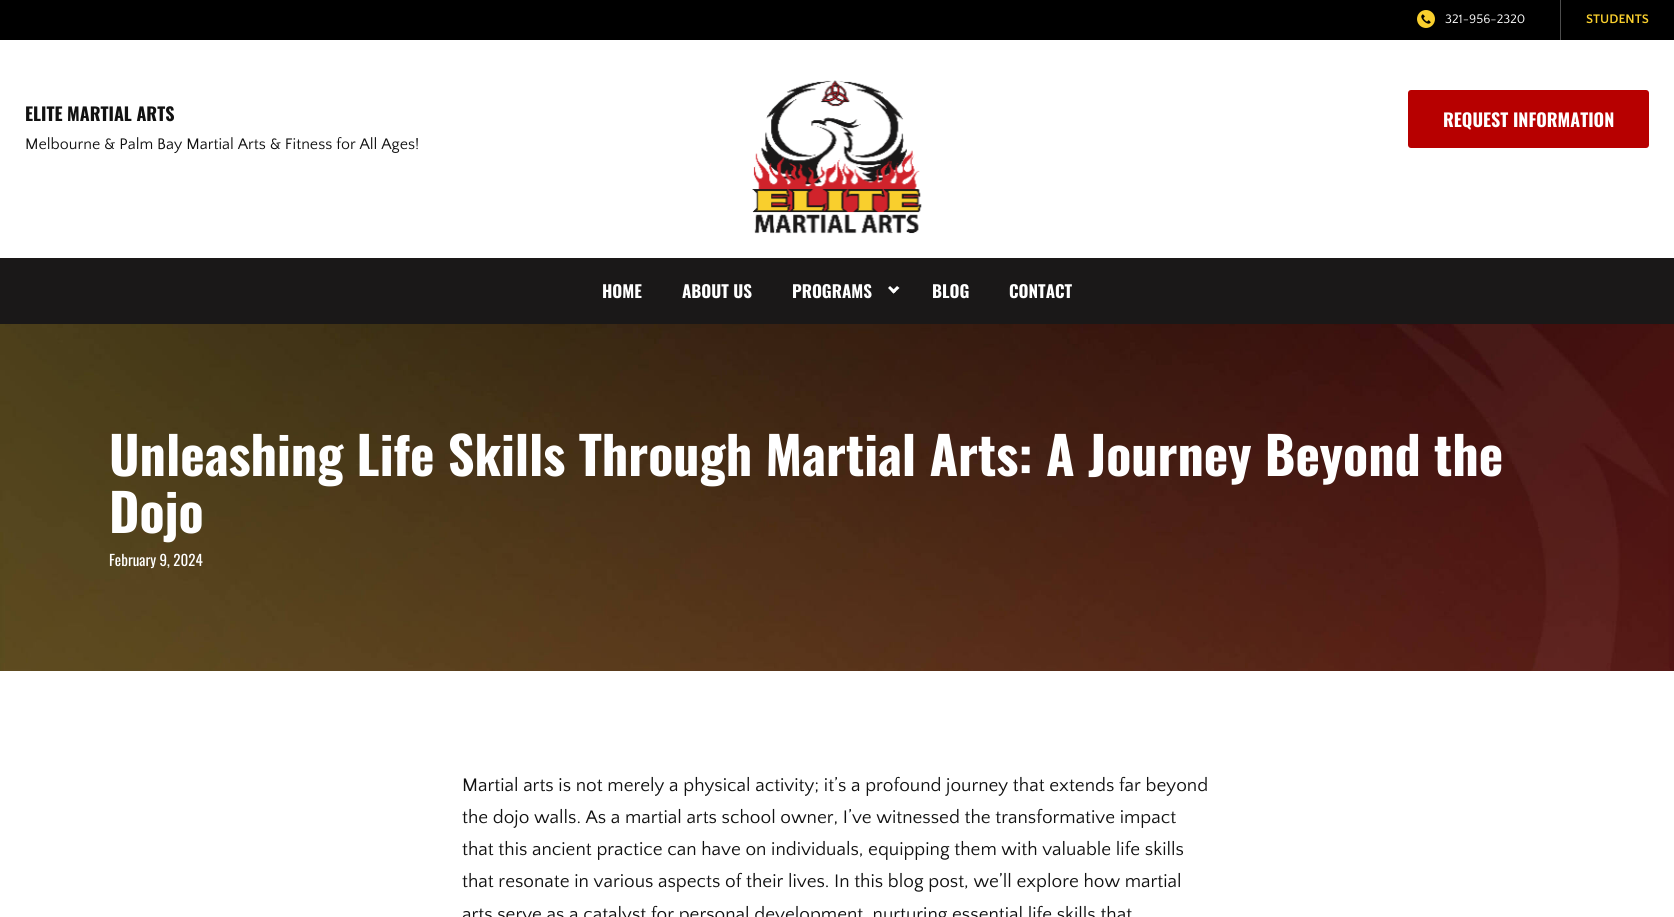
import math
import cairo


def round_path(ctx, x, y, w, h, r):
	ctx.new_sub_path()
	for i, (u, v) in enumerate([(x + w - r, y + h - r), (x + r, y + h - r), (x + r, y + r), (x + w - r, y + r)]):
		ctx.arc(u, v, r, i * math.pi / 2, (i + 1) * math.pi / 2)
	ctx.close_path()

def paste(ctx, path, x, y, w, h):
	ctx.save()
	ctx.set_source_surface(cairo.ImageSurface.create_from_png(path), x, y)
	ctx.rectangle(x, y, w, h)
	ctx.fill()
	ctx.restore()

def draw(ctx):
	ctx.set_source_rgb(1, 1, 1)
	ctx.paint()
	ctx.set_source_rgb(0, 0, 0)
	ctx.rectangle(0, 0, 1674, 40)
	ctx.fill()
	paste(ctx, 'media/1.png', 1417, 10, 18, 18)
	ctx.select_font_face('Quattrocento Sans')
	ctx.set_font_size(13)
	ctx.set_source_rgb(1, 1, 1)
	ctx.move_to(1445, 23)
	ctx.show_text('321-956-2320')
	ctx.set_source_rgb(0.302, 0.302, 0.302)
	ctx.rectangle(1560, 0, 1, 40)
	ctx.fill()
	ctx.select_font_face('Quattrocento Sans', cairo.FONT_SLANT_NORMAL, cairo.FONT_WEIGHT_BOLD)
	ctx.set_source_rgb(0.976, 0.812, 0.176)
	ctx.move_to(1586, 23)
	ctx.show_text('STUDENTS')
	ctx.select_font_face('Oswald', cairo.FONT_SLANT_NORMAL, cairo.FONT_WEIGHT_BOLD)
	ctx.set_font_size(18)
	ctx.set_source_rgb(0.067, 0.067, 0.067)
	ctx.move_to(25, 121)
	ctx.show_text('ELITE MARTIAL ARTS')
	ctx.select_font_face('Quattrocento Sans')
	ctx.set_font_size(16)
	ctx.move_to(25, 149)
	ctx.show_text('Melbourne & Palm Bay Martial Arts & Fitness for All Ages!')
	paste(ctx, 'media/2.png', 752, 80, 170, 154)
	ctx.set_source_rgb(0.718, 0, 0)
	round_path(ctx, 1408, 90, 241, 58, 3)
	ctx.fill()
	ctx.select_font_face('Oswald', cairo.FONT_SLANT_NORMAL, cairo.FONT_WEIGHT_BOLD)
	ctx.set_font_size(18)
	ctx.set_source_rgb(1, 1, 1)
	ctx.move_to(1443, 127)
	ctx.show_text('REQUEST INFORMATION')
	ctx.set_source_rgb(0.102, 0.094, 0.094)
	ctx.rectangle(0, 258, 1674, 66)
	ctx.fill()
	ctx.set_font_size(17)
	ctx.set_source_rgb(1, 1, 1)
	for x, y, s in [
		(602, 298, 'HOME'),
		(682, 298, 'ABOUT US'),
		(792, 298, 'PROGRAMS'),
	]:
		ctx.move_to(x, y)
		ctx.show_text(s)
	ctx.new_path()
	ctx.move_to(897, 286)
	ctx.line_to(899.5, 288)
	ctx.line_to(893.5, 293.5)
	ctx.line_to(891.5, 291.5)
	ctx.close_path()
	ctx.fill()
	ctx.new_path()
	ctx.move_to(890, 286)
	ctx.line_to(896, 291.5)
	ctx.line_to(893.5, 293.5)
	ctx.line_to(888, 288)
	ctx.close_path()
	ctx.fill()
	ctx.move_to(932, 298)
	ctx.show_text('BLOG')
	ctx.move_to(1009, 298)
	ctx.show_text('CONTACT')
	paste(ctx, 'media/3.png', 0, 324, 1674, 347)
	ctx.set_font_size(52)
	ctx.move_to(109, 476)
	ctx.show_text('Unleashing Life Skills Through Martial Arts: A Journey Beyond the')
	ctx.move_to(109, 533)
	ctx.show_text('Dojo')
	ctx.select_font_face('Oswald')
	ctx.set_font_size(15)
	ctx.move_to(109, 566)
	ctx.show_text('February 9, 2024')
	ctx.select_font_face('Quattrocento Sans')
	ctx.set_font_size(19)
	ctx.set_source_rgb(0.067, 0.067, 0.067)
	for x, y, s in [
		(462, 791, 'Martial arts is not merely a physical activity; it’s a profound journey that extends far beyond'),
		(462, 823, 'the dojo walls. As a martial arts school owner, I’ve witnessed the transformative impact'),
		(462, 855, 'that this ancient practice can have on individuals, equipping them with valuable life skills'),
		(462, 887, 'that resonate in various aspects of their lives. In this blog post, we’ll explore how martial'),
		(462, 920, 'arts serve as a catalyst for personal development, nurturing essential life skills that'),
	]:
		ctx.move_to(x, y)
		ctx.show_text(s)


surface = cairo.ImageSurface(cairo.FORMAT_RGB24, 1674, 917)
ctx = cairo.Context(surface)
options = cairo.FontOptions()
options.set_hint_metrics(cairo.HINT_METRICS_OFF)
options.set_hint_style(cairo.HINT_STYLE_NONE)
ctx.set_font_options(options)
ctx.set_miter_limit(4)
draw(ctx)
surface.write_to_png('image.png')
